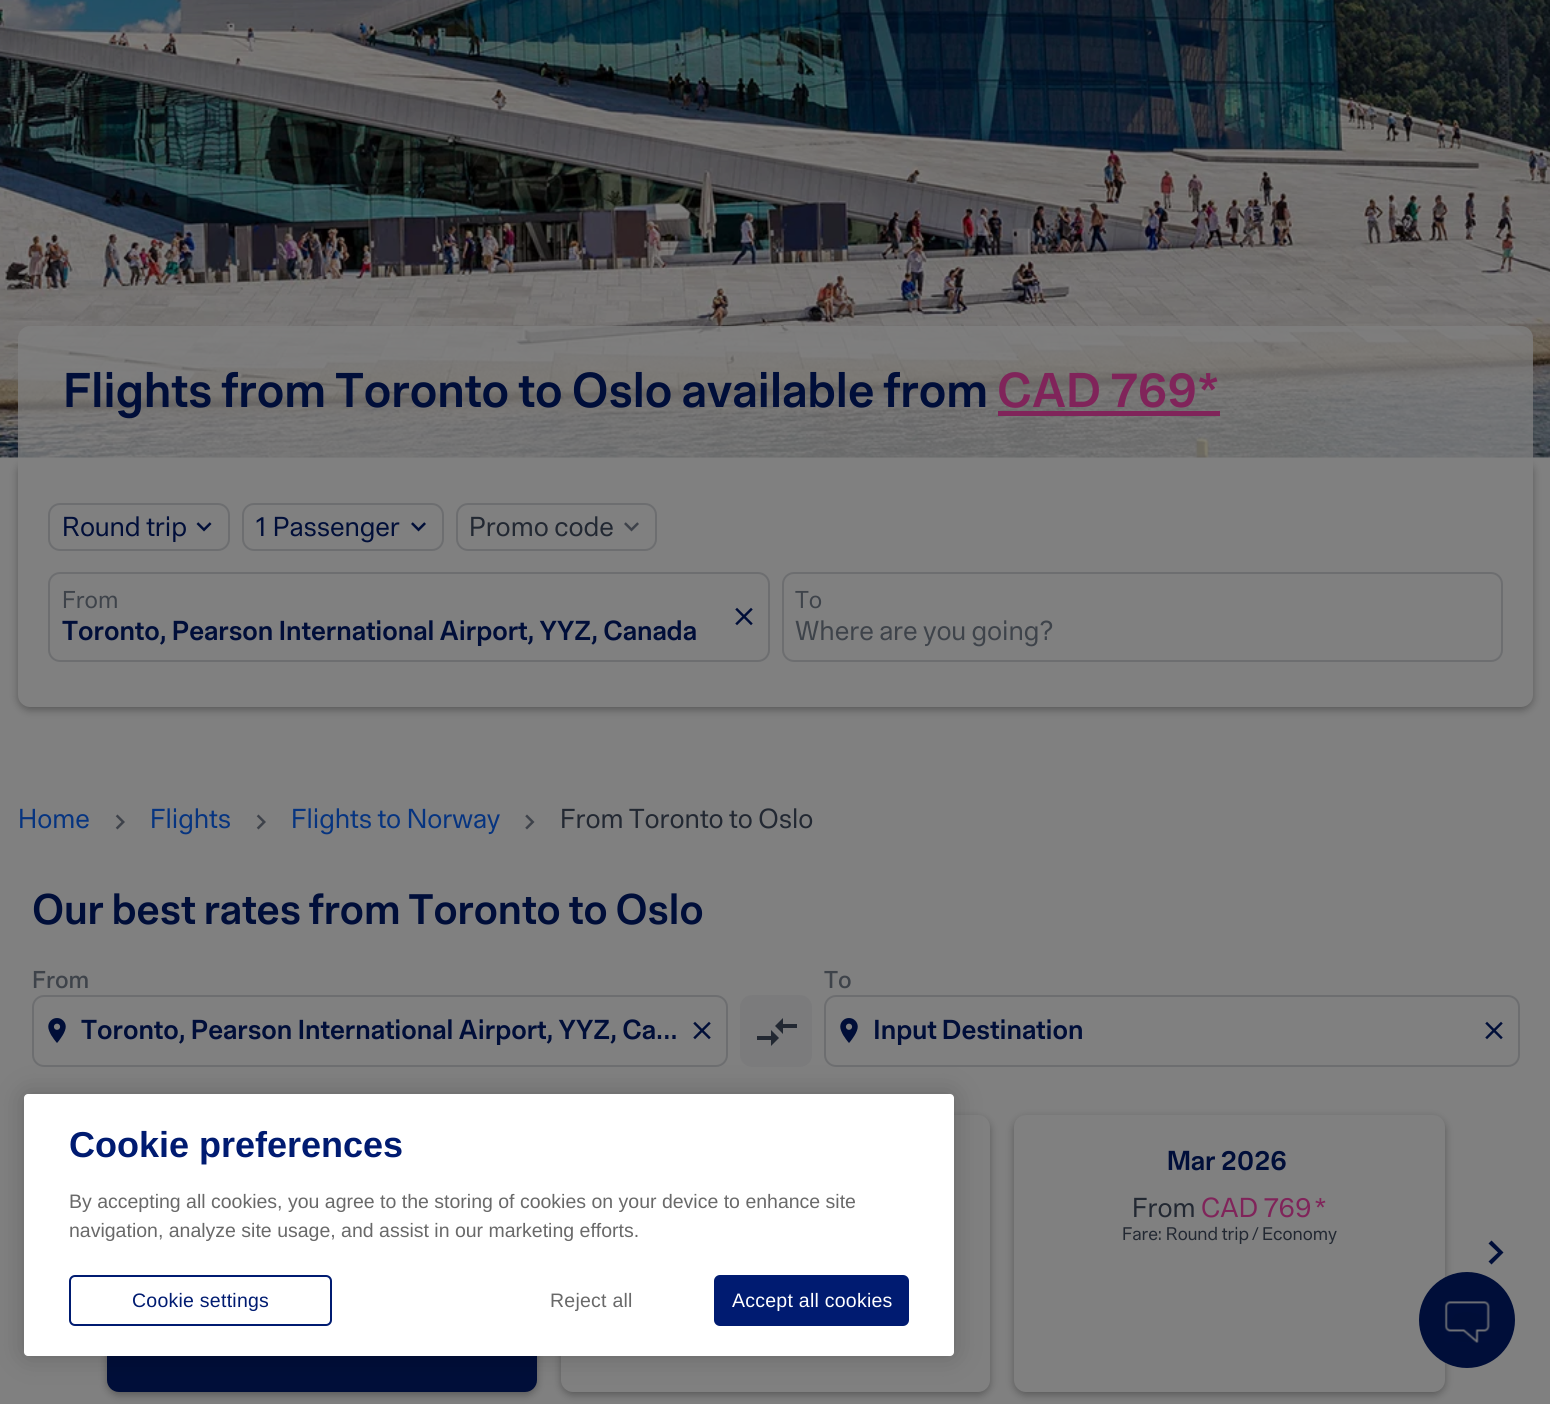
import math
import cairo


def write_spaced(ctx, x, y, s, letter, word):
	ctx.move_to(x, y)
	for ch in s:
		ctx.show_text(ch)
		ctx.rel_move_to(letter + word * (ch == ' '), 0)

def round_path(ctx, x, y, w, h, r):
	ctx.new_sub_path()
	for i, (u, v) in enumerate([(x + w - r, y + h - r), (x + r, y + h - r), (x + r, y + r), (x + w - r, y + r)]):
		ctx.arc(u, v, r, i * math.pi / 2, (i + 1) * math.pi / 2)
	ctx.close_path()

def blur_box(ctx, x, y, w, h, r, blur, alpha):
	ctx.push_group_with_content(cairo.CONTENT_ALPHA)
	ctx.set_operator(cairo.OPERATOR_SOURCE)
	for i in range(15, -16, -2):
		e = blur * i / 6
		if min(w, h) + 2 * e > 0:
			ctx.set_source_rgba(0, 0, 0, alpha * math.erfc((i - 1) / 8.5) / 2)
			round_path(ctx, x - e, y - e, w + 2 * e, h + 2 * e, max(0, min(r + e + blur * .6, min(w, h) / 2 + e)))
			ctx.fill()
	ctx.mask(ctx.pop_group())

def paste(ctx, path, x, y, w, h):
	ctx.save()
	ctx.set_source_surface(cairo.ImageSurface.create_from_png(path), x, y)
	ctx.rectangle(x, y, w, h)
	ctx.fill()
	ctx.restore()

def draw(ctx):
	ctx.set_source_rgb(0.502, 0.502, 0.502)
	ctx.paint()
	paste(ctx, 'media/1.png', 0, 0, 1550, 458)
	ctx.set_source_rgb(0, 0, 0)
	blur_box(ctx, 18, 461, 1515, 249, 12, 4, 0.3)
	ctx.set_source_rgba(0.502, 0.502, 0.502, 0.75)
	ctx.new_path()
	ctx.move_to(30, 326)
	ctx.line_to(1521, 326)
	ctx.curve_to(1527.5, 326, 1533, 331.5, 1533, 338)
	ctx.line_to(1533, 458)
	ctx.line_to(18, 458)
	ctx.line_to(18, 338)
	ctx.curve_to(18, 331.5, 23.5, 326, 30, 326)
	ctx.close_path()
	ctx.fill()
	ctx.select_font_face('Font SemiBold')
	ctx.set_font_size(48)
	ctx.set_source_rgb(0, 0.055, 0.224)
	ctx.move_to(63, 407)
	ctx.show_text('Flights from Toronto to Oslo available from')
	ctx.set_source_rgb(0.502, 0.141, 0.353)
	ctx.move_to(997, 407)
	ctx.show_text('CAD 769*')
	ctx.rectangle(998, 411, 222, 5)
	ctx.fill()
	ctx.set_source_rgb(0.502, 0.502, 0.502)
	ctx.new_path()
	ctx.move_to(18, 458)
	ctx.line_to(1533, 458)
	ctx.line_to(1533, 695)
	ctx.curve_to(1533, 701.5, 1527.5, 707, 1521, 707)
	ctx.line_to(30, 707)
	ctx.curve_to(23.5, 707, 18, 701.5, 18, 695)
	ctx.close_path()
	ctx.fill()
	round_path(ctx, 49, 504, 180, 46, 11)
	ctx.set_source_rgb(0.427, 0.431, 0.439)
	ctx.stroke()
	ctx.select_font_face('Font')
	ctx.set_font_size(27)
	ctx.set_source_rgb(0, 0.055, 0.224)
	ctx.move_to(62, 536)
	ctx.show_text('Round trip')
	paste(ctx, 'media/2.png', 196, 522, 16, 10)
	round_path(ctx, 243, 504, 200, 46, 11)
	ctx.set_source_rgb(0.427, 0.431, 0.439)
	ctx.stroke()
	ctx.set_source_rgb(0, 0.055, 0.224)
	ctx.move_to(255, 536)
	ctx.show_text('1 Passenger')
	paste(ctx, 'media/3.png', 411, 522, 15, 10)
	round_path(ctx, 457, 504, 199, 46, 11)
	ctx.set_source_rgb(0.427, 0.431, 0.439)
	ctx.stroke()
	ctx.set_source_rgb(0.133, 0.157, 0.196)
	ctx.move_to(469, 536)
	ctx.show_text('Promo code')
	paste(ctx, 'media/4.png', 624, 522, 15, 10)
	round_path(ctx, 49, 573, 720, 88, 11)
	ctx.set_source_rgb(0.427, 0.431, 0.439)
	ctx.stroke()
	ctx.set_font_size(24)
	ctx.set_source_rgb(0.243, 0.263, 0.29)
	ctx.move_to(62, 608)
	ctx.show_text('From')
	ctx.select_font_face('Font SemiBold')
	ctx.set_font_size(27)
	ctx.set_source_rgb(0, 0.055, 0.224)
	ctx.move_to(62, 640)
	ctx.show_text('Toronto, Pearson International Airport, YYZ, Canada')
	paste(ctx, 'media/5.png', 735, 607, 18, 19)
	round_path(ctx, 783, 573, 719, 88, 11)
	ctx.set_source_rgb(0.427, 0.431, 0.439)
	ctx.stroke()
	ctx.select_font_face('Font')
	ctx.set_font_size(24)
	ctx.set_source_rgb(0.243, 0.263, 0.29)
	ctx.move_to(795, 608)
	ctx.show_text('To')
	ctx.set_font_size(27)
	ctx.move_to(795, 640)
	ctx.show_text('Where are you going?')
	ctx.set_source_rgb(0.024, 0.204, 0.502)
	ctx.move_to(18, 828)
	ctx.show_text('Home')
	paste(ctx, 'media/6.png', 115, 814, 10, 16)
	ctx.move_to(150, 828)
	ctx.show_text('Flights')
	paste(ctx, 'media/6.png', 256, 814, 10, 16)
	ctx.move_to(291, 828)
	ctx.show_text('Flights to Norway')
	paste(ctx, 'media/7.png', 525, 814, 10, 16)
	ctx.set_source_rgb(0.133, 0.157, 0.196)
	ctx.move_to(560, 828)
	ctx.show_text('From Toronto to Oslo')
	ctx.select_font_face('Font SemiBold')
	ctx.set_font_size(42)
	ctx.set_source_rgb(0, 0.055, 0.224)
	ctx.move_to(32, 924)
	ctx.show_text('Our best rates from Toronto to Oslo')
	ctx.select_font_face('Font Medium')
	ctx.set_font_size(24)
	ctx.set_source_rgb(0.243, 0.263, 0.29)
	ctx.move_to(32, 988)
	ctx.show_text('From')
	round_path(ctx, 33, 996, 694, 70, 11)
	ctx.set_source_rgb(0.427, 0.431, 0.439)
	ctx.stroke()
	paste(ctx, 'media/8.png', 48, 1018, 18, 25)
	ctx.select_font_face('Font SemiBold')
	ctx.set_font_size(27)
	ctx.set_source_rgb(0, 0.055, 0.224)
	ctx.move_to(81, 1039)
	ctx.show_text('Toronto, Pearson International Airport, YYZ, Ca…')
	paste(ctx, 'media/5.png', 693, 1021, 18, 19)
	ctx.set_source_rgb(0.482, 0.482, 0.486)
	round_path(ctx, 740, 995, 72, 72, 12)
	ctx.fill()
	ctx.set_source_rgb(0.133, 0.157, 0.196)
	ctx.new_path()
	ctx.move_to(783, 1034)
	ctx.line_to(775, 1026)
	ctx.line_to(783, 1018)
	ctx.line_to(783, 1024)
	ctx.line_to(797, 1024)
	ctx.line_to(797, 1028)
	ctx.line_to(783, 1028)
	ctx.close_path()
	ctx.move_to(771, 1036)
	ctx.line_to(771, 1030)
	ctx.line_to(779, 1038)
	ctx.line_to(771, 1046)
	ctx.line_to(771, 1040)
	ctx.line_to(757, 1040)
	ctx.line_to(757, 1036)
	ctx.close_path()
	ctx.fill()
	ctx.select_font_face('Font Medium')
	ctx.set_font_size(24)
	ctx.set_source_rgb(0.243, 0.263, 0.29)
	ctx.move_to(824, 988)
	ctx.show_text('To')
	round_path(ctx, 825, 996, 694, 70, 11)
	ctx.set_source_rgb(0.427, 0.431, 0.439)
	ctx.stroke()
	paste(ctx, 'media/8.png', 840, 1018, 18, 25)
	ctx.select_font_face('Font SemiBold')
	ctx.set_font_size(27)
	ctx.set_source_rgb(0, 0.055, 0.224)
	ctx.move_to(873, 1039)
	ctx.show_text('Input Destination')
	paste(ctx, 'media/5.png', 1485, 1021, 18, 19)
	ctx.set_source_rgb(0, 0, 0)
	blur_box(ctx, 107, 1118, 430, 277, 12, 4, 0.3)
	ctx.set_source_rgb(0, 0.055, 0.224)
	round_path(ctx, 107, 1115, 430, 277, 12)
	ctx.fill()
	ctx.set_source_rgb(0, 0, 0)
	blur_box(ctx, 561, 1118, 429, 277, 12, 4, 0.3)
	ctx.set_source_rgb(0.502, 0.502, 0.502)
	round_path(ctx, 561, 1115, 429, 277, 12)
	ctx.fill()
	ctx.set_source_rgb(0, 0, 0)
	blur_box(ctx, 1014, 1118, 431, 277, 12, 4, 0.3)
	ctx.set_source_rgb(0.502, 0.502, 0.502)
	round_path(ctx, 1014, 1115, 431, 277, 12)
	ctx.fill()
	ctx.set_source_rgb(0, 0.055, 0.224)
	ctx.move_to(1167, 1170)
	ctx.show_text('Mar 2026')
	ctx.select_font_face('Font')
	ctx.set_source_rgb(0.133, 0.157, 0.196)
	ctx.move_to(1132, 1217)
	ctx.show_text('From')
	ctx.set_source_rgb(0.502, 0.141, 0.353)
	ctx.move_to(1201, 1217)
	ctx.show_text('CAD 769')
	ctx.move_to(1314, 1217)
	ctx.show_text('*')
	ctx.set_font_size(18)
	ctx.set_source_rgb(0.133, 0.157, 0.196)
	for x, y, s in [
		(1122, 1240, 'Fare: Round trip'),
		(1252, 1240, '/'),
		(1262, 1240, 'Economy'),
	]:
		ctx.move_to(x, y)
		ctx.show_text(s)
	ctx.set_source_rgb(0, 0.055, 0.224)
	ctx.new_path()
	ctx.move_to(1491.5, 1240.5)
	ctx.line_to(1503.5, 1252.5)
	ctx.line_to(1491.5, 1264.5)
	ctx.line_to(1488.5, 1261.5)
	ctx.line_to(1498, 1252.5)
	ctx.line_to(1488.5, 1243.5)
	ctx.close_path()
	ctx.fill()
	ctx.set_source_rgb(0, 0, 0)
	blur_box(ctx, 24, 1094, 930, 262, 4, 13.5, 0.2)
	ctx.set_source_rgb(1, 1, 1)
	round_path(ctx, 24, 1094, 930, 262, 4)
	ctx.fill()
	ctx.select_font_face('Liberation Sans', cairo.FONT_SLANT_NORMAL, cairo.FONT_WEIGHT_BOLD)
	ctx.set_font_size(36)
	ctx.set_source_rgb(0, 0.106, 0.443)
	ctx.move_to(69, 1157)
	ctx.show_text('Cookie preferences')
	ctx.select_font_face('Liberation Sans')
	ctx.set_font_size(19.5)
	ctx.set_source_rgb(0.412, 0.412, 0.412)
	ctx.move_to(69, 1208)
	ctx.show_text('By accepting all cookies, you agree to the storing of cookies on your device to enhance site')
	ctx.move_to(69, 1237)
	ctx.show_text('navigation, analyze site usage, and assist in our marketing efforts.')
	round_path(ctx, 70, 1276, 261, 49, 5)
	ctx.set_source_rgb(0, 0.106, 0.443)
	ctx.stroke()
	write_spaced(ctx, 132, 1307, 'Cookie settings', 0.25, 0)
	ctx.set_source_rgb(0.412, 0.412, 0.412)
	write_spaced(ctx, 550, 1307, 'Reject all', 0.25, 0)
	ctx.set_source_rgb(0, 0.106, 0.443)
	round_path(ctx, 715, 1276, 193, 49, 5)
	ctx.fill_preserve()
	ctx.stroke()
	ctx.set_source_rgb(1, 1, 1)
	write_spaced(ctx, 732, 1307, 'Accept all cookies', 0.25, 0)
	ctx.set_source_rgb(0, 0.055, 0.224)
	ctx.new_path()
	ctx.arc(1467, 1320, 48, 0, 2 * math.pi)
	ctx.fill()
	paste(ctx, 'media/9.png', 1444, 1301, 46, 42)


surface = cairo.ImageSurface(cairo.FORMAT_RGB24, 1550, 1404)
ctx = cairo.Context(surface)
options = cairo.FontOptions()
options.set_hint_metrics(cairo.HINT_METRICS_OFF)
options.set_hint_style(cairo.HINT_STYLE_NONE)
ctx.set_font_options(options)
ctx.set_miter_limit(4)
draw(ctx)
surface.write_to_png('image.png')
